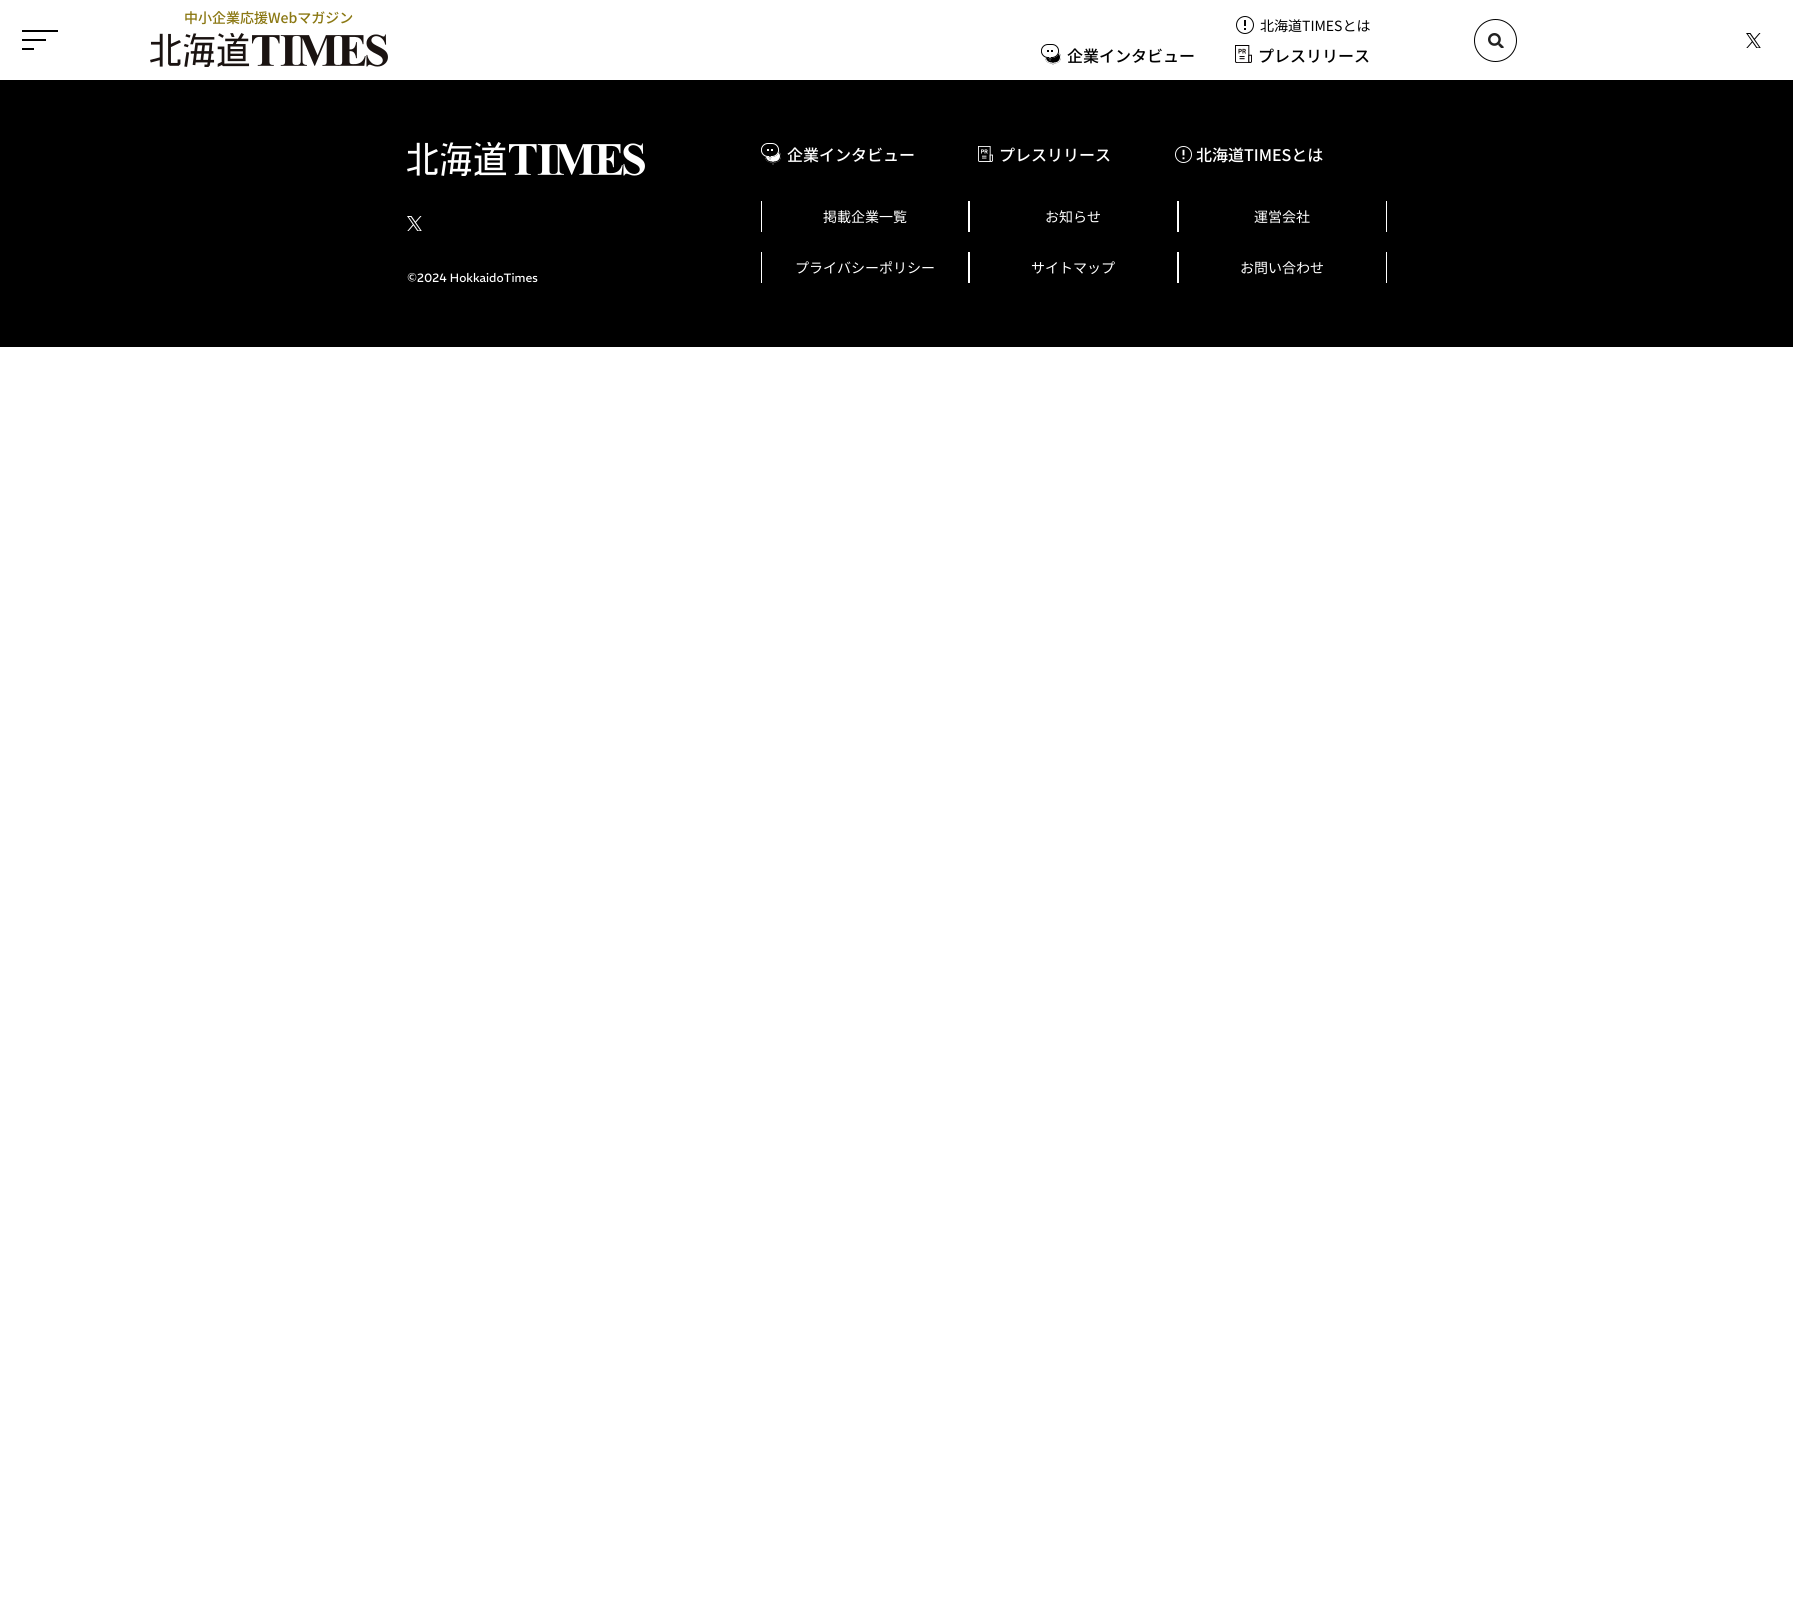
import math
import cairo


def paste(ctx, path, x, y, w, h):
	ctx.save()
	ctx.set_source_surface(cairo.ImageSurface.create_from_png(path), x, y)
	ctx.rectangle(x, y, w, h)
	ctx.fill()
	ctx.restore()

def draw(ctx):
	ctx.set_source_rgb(1, 1, 1)
	ctx.paint()
	ctx.set_source_rgb(0, 0, 0)
	ctx.rectangle(22, 30, 36, 2)
	ctx.rectangle(22, 39, 24, 2)
	ctx.rectangle(22, 48, 12, 2)
	ctx.fill()
	ctx.select_font_face('Noto Sans JP Medium')
	ctx.set_font_size(14)
	ctx.set_source_rgb(0.545, 0.471, 0.078)
	ctx.move_to(184, 23)
	ctx.show_text('中小企業応援Webマガジン')
	paste(ctx, 'media/1.png', 150, 33, 238, 34)
	paste(ctx, 'media/2.png', 1236, 16, 18, 18)
	ctx.select_font_face('Noto Sans JP')
	ctx.set_source_rgb(0, 0, 0)
	ctx.move_to(1260, 31)
	ctx.show_text('北海道TIMESとは')
	paste(ctx, 'media/3.png', 1041, 44, 20, 21)
	ctx.select_font_face('Noto Sans JP Medium')
	ctx.set_font_size(16)
	ctx.move_to(1067, 62)
	ctx.show_text('企業インタビュー')
	paste(ctx, 'media/4.png', 1235, 45, 17, 18)
	ctx.move_to(1258, 62)
	ctx.show_text('プレスリリース')
	ctx.new_path()
	ctx.arc(1495.5, 40.5, 21, 0, 2 * math.pi)
	ctx.set_line_width(1)
	ctx.stroke()
	paste(ctx, 'media/5.png', 1488, 33, 16, 15)
	paste(ctx, 'media/6.png', 1746, 33, 15, 15)
	ctx.rectangle(0, 80, 1793, 267)
	ctx.fill()
	paste(ctx, 'media/7.png', 407, 142, 238, 34)
	paste(ctx, 'media/8.png', 761, 143, 20, 22)
	ctx.set_source_rgb(1, 1, 1)
	ctx.move_to(787, 161)
	ctx.show_text('企業インタビュー')
	paste(ctx, 'media/9.png', 978, 146, 15, 16)
	ctx.move_to(999, 161)
	ctx.show_text('プレスリリース')
	paste(ctx, 'media/10.png', 1175, 146, 17, 17)
	ctx.move_to(1196, 161)
	ctx.show_text('北海道TIMESとは')
	paste(ctx, 'media/11.png', 407, 216, 15, 15)
	ctx.rectangle(968, 201, 2, 31)
	ctx.fill()
	ctx.rectangle(761, 201, 1, 31)
	ctx.fill()
	ctx.select_font_face('Noto Sans JP')
	ctx.set_font_size(14)
	ctx.move_to(823, 222)
	ctx.show_text('掲載企業一覧')
	ctx.rectangle(1177, 201, 2, 31)
	ctx.fill()
	ctx.move_to(1045, 222)
	ctx.show_text('お知らせ')
	ctx.rectangle(1386, 201, 1, 31)
	ctx.fill()
	ctx.move_to(1254, 222)
	ctx.show_text('運営会社')
	ctx.rectangle(968, 252, 2, 31)
	ctx.fill()
	ctx.rectangle(761, 252, 1, 31)
	ctx.fill()
	ctx.move_to(795, 273)
	ctx.show_text('プライバシーポリシー')
	ctx.rectangle(1177, 252, 2, 31)
	ctx.fill()
	ctx.move_to(1031, 273)
	ctx.show_text('サイトマップ')
	ctx.rectangle(1386, 252, 1, 31)
	ctx.fill()
	ctx.move_to(1240, 273)
	ctx.show_text('お問い合わせ')
	ctx.select_font_face('REM')
	ctx.set_font_size(12)
	ctx.move_to(407, 282)
	ctx.show_text('©2024 HokkaidoTimes')


surface = cairo.ImageSurface(cairo.FORMAT_RGB24, 1793, 1604)
ctx = cairo.Context(surface)
options = cairo.FontOptions()
options.set_hint_metrics(cairo.HINT_METRICS_OFF)
options.set_hint_style(cairo.HINT_STYLE_NONE)
ctx.set_font_options(options)
ctx.set_miter_limit(4)
draw(ctx)
surface.write_to_png('image.png')
